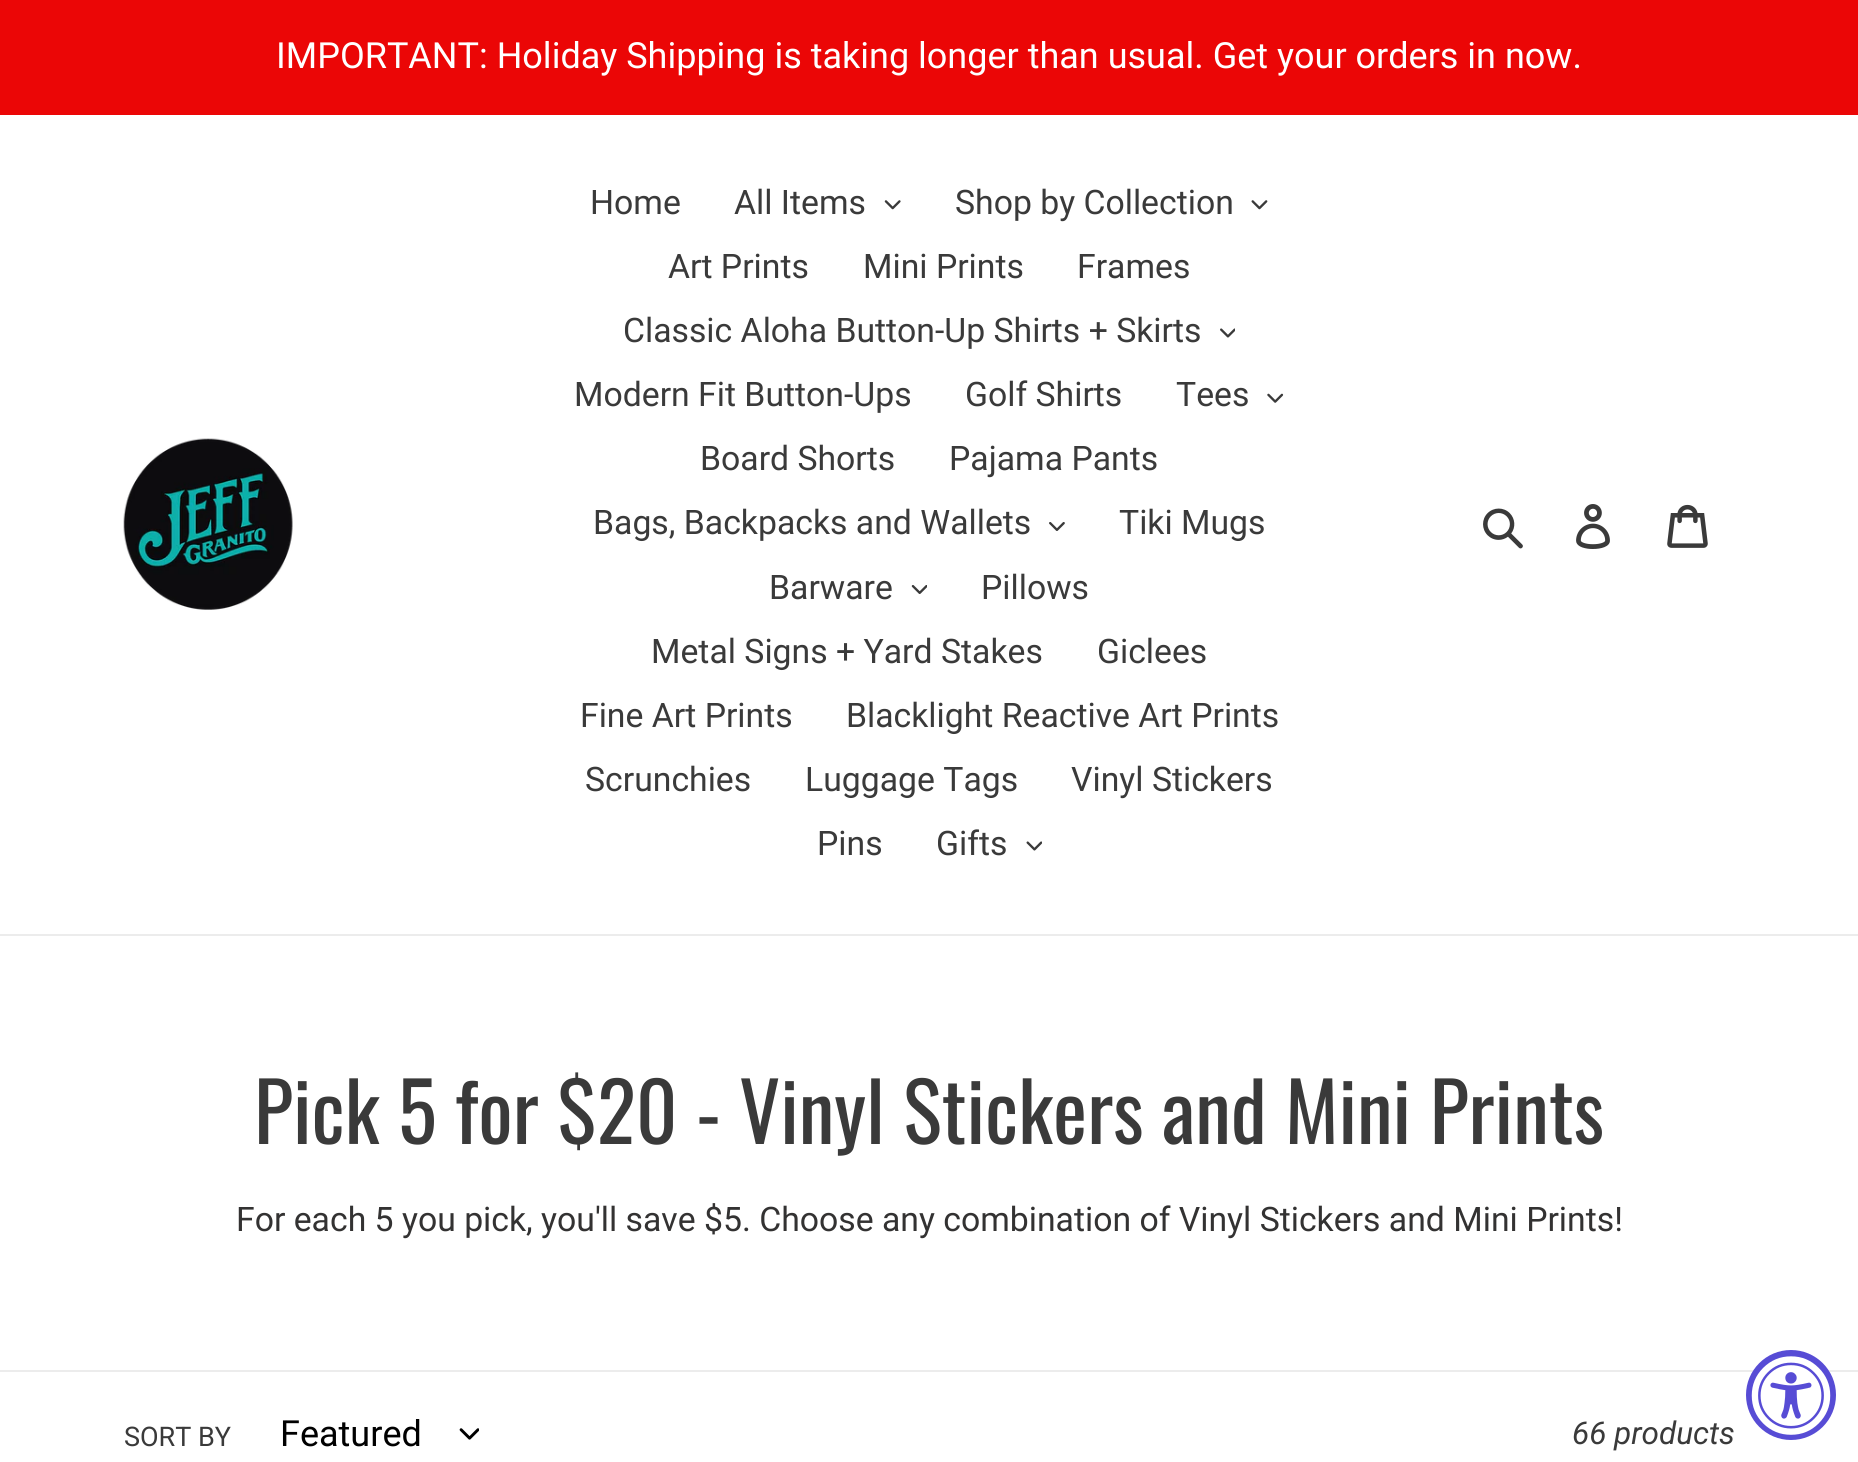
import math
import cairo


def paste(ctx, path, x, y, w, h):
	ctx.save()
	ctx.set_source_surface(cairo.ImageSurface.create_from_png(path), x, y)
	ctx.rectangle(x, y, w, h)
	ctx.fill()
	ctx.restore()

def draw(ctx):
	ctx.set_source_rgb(1, 1, 1)
	ctx.paint()
	ctx.set_source_rgb(0.918, 0.024, 0.024)
	ctx.rectangle(0, 0, 1858, 115)
	ctx.fill()
	ctx.select_font_face('Roboto')
	ctx.set_font_size(36)
	ctx.set_source_rgb(1, 1, 1)
	ctx.move_to(276, 68)
	ctx.show_text('IMPORTANT: Holiday Shipping is taking longer than usual. Get your orders in now.')
	ctx.set_source_rgb(0.922, 0.922, 0.922)
	ctx.rectangle(0, 934, 1858, 2)
	ctx.fill()
	paste(ctx, 'media/1.png', 123, 438, 170, 172)
	ctx.set_font_size(33.75)
	ctx.set_source_rgb(0.227, 0.227, 0.227)
	ctx.move_to(590, 214)
	ctx.show_text('Home')
	ctx.move_to(734, 214)
	ctx.show_text('All Items')
	paste(ctx, 'media/2.png', 884, 200, 17, 10)
	ctx.move_to(955, 214)
	ctx.show_text('Shop by Collection')
	paste(ctx, 'media/3.png', 1251, 200, 17, 10)
	for x, y, s in [
		(668, 278, 'Art Prints'),
		(863, 278, 'Mini Prints'),
		(1077, 278, 'Frames'),
		(623, 342, 'Classic Aloha Button-Up Shirts + Skirts'),
	]:
		ctx.move_to(x, y)
		ctx.show_text(s)
	paste(ctx, 'media/4.png', 1220, 328, 15, 10)
	for x, y, s in [
		(574, 406, 'Modern Fit Button-Ups'),
		(965, 406, 'Golf Shirts'),
		(1176, 406, 'Tees'),
	]:
		ctx.move_to(x, y)
		ctx.show_text(s)
	paste(ctx, 'media/5.png', 1267, 393, 17, 10)
	for x, y, s in [
		(700, 470, 'Board Shorts'),
		(949, 470, 'Pajama Pants'),
		(593, 534, 'Bags, Backpacks and Wallets'),
	]:
		ctx.move_to(x, y)
		ctx.show_text(s)
	paste(ctx, 'media/6.png', 1049, 522, 16, 9)
	ctx.move_to(1119, 534)
	ctx.show_text('Tiki Mugs')
	ctx.move_to(769, 599)
	ctx.show_text('Barware')
	paste(ctx, 'media/7.png', 911, 585, 16, 9)
	for x, y, s in [
		(981, 599, 'Pillows'),
		(651, 663, 'Metal Signs + Yard Stakes'),
		(1097, 663, 'Giclees'),
		(580, 727, 'Fine Art Prints'),
		(846, 727, 'Blacklight Reactive Art Prints'),
		(585, 791, 'Scrunchies'),
		(805, 791, 'Luggage Tags'),
		(1071, 791, 'Vinyl Stickers'),
		(817, 855, 'Pins'),
		(936, 855, 'Gifts'),
	]:
		ctx.move_to(x, y)
		ctx.show_text(s)
	paste(ctx, 'media/8.png', 1026, 841, 16, 10)
	paste(ctx, 'media/9.png', 1483, 508, 40, 41)
	paste(ctx, 'media/10.png', 1576, 504, 34, 45)
	paste(ctx, 'media/11.png', 1667, 504, 41, 44)
	ctx.select_font_face('Oswald')
	ctx.set_font_size(81)
	ctx.move_to(254, 1144)
	ctx.show_text('Pick 5 for $20 - Vinyl Stickers and Mini Prints')
	ctx.select_font_face('Roboto')
	ctx.set_font_size(33.75)
	ctx.set_source_rgb(0.2, 0.196, 0.196)
	ctx.move_to(236, 1231)
	ctx.show_text('For each 5 you pick, you\'ll save $5. Choose any combination of Vinyl Stickers and Mini Prints!')
	ctx.set_source_rgb(0.922, 0.922, 0.922)
	ctx.rectangle(0, 1370, 1858, 2)
	ctx.fill()
	ctx.set_font_size(27)
	ctx.set_source_rgb(0.227, 0.227, 0.227)
	ctx.move_to(124, 1446)
	ctx.show_text('SORT BY')
	ctx.set_font_size(36)
	ctx.set_source_rgb(0, 0, 0)
	ctx.move_to(280, 1446)
	ctx.show_text('Featured')
	paste(ctx, 'media/12.png', 459, 1428, 20, 12)
	ctx.select_font_face('Roboto', cairo.FONT_SLANT_ITALIC)
	ctx.set_font_size(31.5)
	ctx.set_source_rgb(0.227, 0.227, 0.227)
	ctx.move_to(1572, 1444)
	ctx.show_text('66 products')
	ctx.set_source_rgb(0.341, 0.298, 0.835)
	ctx.new_path()
	ctx.arc(1791, 1395, 45, 0, 2 * math.pi)
	ctx.fill()
	paste(ctx, 'media/13.png', 1751, 1356, 80, 79)


surface = cairo.ImageSurface(cairo.FORMAT_RGB24, 1858, 1462)
ctx = cairo.Context(surface)
options = cairo.FontOptions()
options.set_hint_metrics(cairo.HINT_METRICS_OFF)
options.set_hint_style(cairo.HINT_STYLE_NONE)
ctx.set_font_options(options)
ctx.set_miter_limit(4)
draw(ctx)
surface.write_to_png('image.png')
